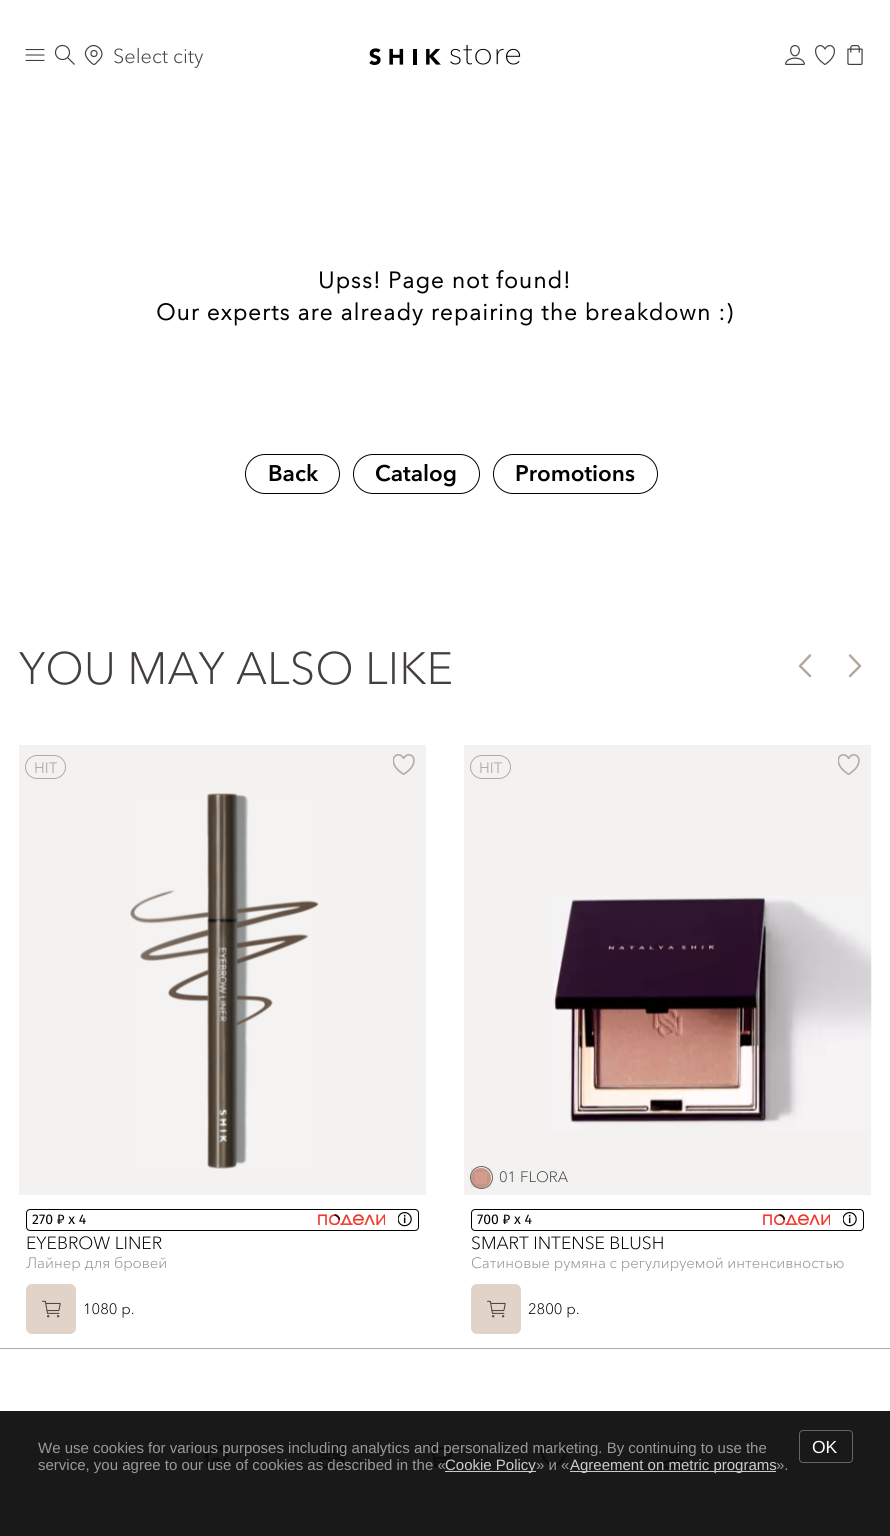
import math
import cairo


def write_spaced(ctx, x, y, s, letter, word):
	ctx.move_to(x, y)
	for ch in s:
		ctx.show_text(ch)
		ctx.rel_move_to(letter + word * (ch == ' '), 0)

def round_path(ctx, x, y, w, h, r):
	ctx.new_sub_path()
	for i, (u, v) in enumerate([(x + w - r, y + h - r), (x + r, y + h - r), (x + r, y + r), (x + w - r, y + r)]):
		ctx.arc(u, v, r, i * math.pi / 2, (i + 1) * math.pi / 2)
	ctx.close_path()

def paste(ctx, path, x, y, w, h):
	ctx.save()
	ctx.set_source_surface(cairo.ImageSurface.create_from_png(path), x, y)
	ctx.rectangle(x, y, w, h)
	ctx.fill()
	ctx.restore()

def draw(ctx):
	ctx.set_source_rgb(1, 1, 1)
	ctx.paint()
	ctx.set_source_rgb(0.098, 0.098, 0.098)
	ctx.rectangle(0, 1411, 890, 125)
	ctx.fill()
	ctx.save()
	ctx.rectangle(25, 49, 20, 12)
	ctx.clip()
	ctx.new_path()
	ctx.move_to(26, 49.5)
	ctx.line_to(44, 49.5)
	ctx.move_to(26, 55)
	ctx.line_to(44, 55)
	ctx.move_to(26, 60.5)
	ctx.line_to(44, 60.5)
	ctx.set_source_rgb(0.263, 0.247, 0.247)
	ctx.set_line_width(1.1)
	ctx.set_line_cap(cairo.LINE_CAP_ROUND)
	ctx.stroke()
	ctx.restore()
	ctx.arc(62.5, 52.5, 7, 0, 2 * math.pi)
	ctx.set_source_rgb(0.263, 0.247, 0.247)
	ctx.set_line_width(1.2)
	ctx.stroke()
	ctx.new_path()
	ctx.move_to(67.5, 57.5)
	ctx.line_to(74.5, 64.5)
	ctx.stroke()
	ctx.arc(94, 53.5, 3, 0, 2 * math.pi)
	ctx.stroke()
	ctx.new_path()
	ctx.move_to(99.5, 59.5)
	ctx.curve_to(94, 65, 95, 66.5, 89.5, 61)
	ctx.curve_to(85.5, 57, 83.5, 52.5, 88, 48)
	ctx.curve_to(95.5, 40.5, 107, 52, 99.5, 59.5)
	ctx.close_path()
	ctx.set_line_cap(cairo.LINE_CAP_ROUND)
	ctx.set_line_join(cairo.LINE_JOIN_ROUND)
	ctx.stroke()
	ctx.select_font_face('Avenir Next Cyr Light')
	ctx.set_font_size(20)
	ctx.set_source_rgb(0.263, 0.247, 0.235)
	ctx.move_to(113, 63)
	ctx.show_text('Select city')
	paste(ctx, 'media/1.png', 369, 45, 152, 20)
	paste(ctx, 'media/2.png', 785, 45, 20, 20)
	paste(ctx, 'media/3.png', 815, 45, 20, 20)
	paste(ctx, 'media/4.png', 847, 45, 16, 20)
	ctx.select_font_face('Avenir Next Cyr', cairo.FONT_SLANT_NORMAL, cairo.FONT_WEIGHT_BOLD)
	ctx.set_font_size(22.5)
	ctx.set_source_rgb(0, 0, 0)
	write_spaced(ctx, 318, 288, 'Upss! Page not found!', 1.25, 0)
	write_spaced(ctx, 156, 320, 'Our experts are already repairing the breakdown :)', 1.25, 0)
	round_path(ctx, 245.5, 454.5, 94, 39, 19.5)
	ctx.set_line_width(1)
	ctx.set_line_cap(cairo.LINE_CAP_BUTT)
	ctx.set_line_join(cairo.LINE_JOIN_MITER)
	ctx.stroke()
	ctx.select_font_face('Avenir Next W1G', cairo.FONT_SLANT_NORMAL, cairo.FONT_WEIGHT_BOLD)
	ctx.move_to(268, 481)
	ctx.show_text('Back')
	round_path(ctx, 353.5, 454.5, 126, 39, 19.5)
	ctx.stroke()
	ctx.move_to(375, 481)
	ctx.show_text('Catalog')
	round_path(ctx, 493.5, 454.5, 164, 39, 19.5)
	ctx.stroke()
	ctx.move_to(515, 481)
	ctx.show_text('Promotions')
	ctx.select_font_face('Avenir Next Cyr Light')
	ctx.set_font_size(45)
	ctx.set_source_rgb(0.263, 0.247, 0.235)
	ctx.move_to(19, 684)
	ctx.show_text('YOU MAY ALSO LIKE')
	ctx.new_path()
	ctx.move_to(810, 655.5)
	ctx.line_to(800, 666)
	ctx.line_to(810, 676)
	ctx.move_to(850, 676)
	ctx.line_to(860, 666)
	ctx.line_to(850, 655.5)
	ctx.set_source_rgb(0.706, 0.663, 0.624)
	ctx.set_line_width(2.5)
	ctx.set_line_cap(cairo.LINE_CAP_ROUND)
	ctx.set_line_join(cairo.LINE_JOIN_ROUND)
	ctx.stroke()
	ctx.set_source_rgb(0.957, 0.949, 0.945)
	ctx.rectangle(19, 745, 407, 450)
	ctx.fill()
	paste(ctx, 'media/5.png', 130, 793, 189, 376)
	round_path(ctx, 25.5, 755.5, 40, 23, 11.5)
	ctx.set_source_rgb(0.706, 0.663, 0.624)
	ctx.set_line_width(1)
	ctx.set_line_cap(cairo.LINE_CAP_BUTT)
	ctx.set_line_join(cairo.LINE_JOIN_MITER)
	ctx.stroke()
	ctx.select_font_face('Avenir Next W1G')
	ctx.set_font_size(15)
	ctx.move_to(34, 773)
	ctx.show_text('HIT')
	paste(ctx, 'media/6.png', 393, 754, 22, 21)
	round_path(ctx, 26.5, 1209.5, 392, 21, 3.5)
	ctx.set_source_rgb(0, 0, 0)
	ctx.stroke()
	ctx.select_font_face('Fira Sans')
	ctx.set_font_size(14)
	ctx.move_to(32, 1224)
	ctx.show_text('270 ₽ x 4')
	paste(ctx, 'media/7.png', 318, 1214, 67, 11)
	paste(ctx, 'media/8.png', 398, 1212, 14, 15)
	ctx.select_font_face('Avenir Next Cyr Light')
	ctx.set_font_size(17.5)
	ctx.move_to(26, 1249)
	ctx.show_text('EYEBROW LINER')
	ctx.save()
	ctx.rectangle(26, 1254, 393, 17)
	ctx.clip()
	ctx.set_font_size(15)
	ctx.set_source_rgb(0.561, 0.561, 0.561)
	ctx.move_to(26, 1268)
	ctx.show_text('Лайнер для бровей')
	ctx.restore()
	ctx.set_source_rgb(0.882, 0.827, 0.78)
	round_path(ctx, 26, 1284, 50, 50, 6)
	ctx.fill()
	paste(ctx, 'media/9.png', 42, 1300, 19, 18)
	ctx.set_font_size(15)
	ctx.set_source_rgb(0, 0, 0)
	ctx.move_to(83, 1314)
	ctx.show_text('1080 p.')
	ctx.set_source_rgb(0.957, 0.949, 0.945)
	ctx.rectangle(464, 745, 407, 450)
	ctx.fill()
	round_path(ctx, 470.5, 755.5, 40, 23, 11.5)
	ctx.set_source_rgb(0.706, 0.663, 0.624)
	ctx.stroke()
	ctx.select_font_face('Avenir Next W1G')
	ctx.move_to(479, 773)
	ctx.show_text('HIT')
	paste(ctx, 'media/6.png', 838, 754, 22, 21)
	paste(ctx, 'media/10.png', 552, 895, 320, 235)
	ctx.set_source_rgb(0.824, 0.608, 0.549)
	ctx.arc(481, 1178, 10, 0, 2 * math.pi)
	ctx.fill()
	ctx.rectangle(473, 1170, 16, 16)
	ctx.set_source_rgba(0, 0, 0, 0.05)
	ctx.set_line_width(4)
	ctx.stroke()
	ctx.arc(481.5, 1177.5, 11, 0, 2 * math.pi)
	ctx.set_source_rgb(0.392, 0.392, 0.392)
	ctx.set_line_width(1)
	ctx.stroke()
	ctx.select_font_face('Avenir Next Cyr Light')
	ctx.set_source_rgb(0.247, 0.267, 0.267)
	ctx.move_to(499, 1182)
	ctx.show_text('01 FLORA')
	round_path(ctx, 471.5, 1209.5, 392, 21, 3.5)
	ctx.set_source_rgb(0, 0, 0)
	ctx.stroke()
	ctx.select_font_face('Fira Sans')
	ctx.set_font_size(14)
	ctx.move_to(477, 1224)
	ctx.show_text('700 ₽ x 4')
	paste(ctx, 'media/7.png', 763, 1214, 67, 11)
	paste(ctx, 'media/8.png', 843, 1212, 14, 15)
	ctx.select_font_face('Avenir Next Cyr Light')
	ctx.set_font_size(17.5)
	ctx.move_to(471, 1249)
	ctx.show_text('SMART INTENSE BLUSH')
	ctx.save()
	ctx.rectangle(471, 1254, 393, 17)
	ctx.clip()
	ctx.set_font_size(15)
	ctx.set_source_rgb(0.561, 0.561, 0.561)
	ctx.move_to(471, 1268)
	ctx.show_text('Сатиновые румяна с регулируемой интенсивностью')
	ctx.restore()
	ctx.set_source_rgb(0.882, 0.827, 0.78)
	round_path(ctx, 471, 1284, 50, 50, 6)
	ctx.fill()
	paste(ctx, 'media/9.png', 487, 1300, 19, 18)
	ctx.set_font_size(15)
	ctx.set_source_rgb(0, 0, 0)
	ctx.move_to(528, 1314)
	ctx.show_text('2800 p.')
	ctx.set_source_rgb(0.706, 0.663, 0.624)
	ctx.rectangle(0, 1348, 890, 1)
	ctx.fill()
	paste(ctx, 'media/11.png', 203, 1444, 26, 25)
	paste(ctx, 'media/12.png', 318, 1443, 27, 26)
	paste(ctx, 'media/13.png', 427, 1444, 26, 24)
	paste(ctx, 'media/14.png', 540, 1443, 27, 26)
	paste(ctx, 'media/15.png', 660, 1443, 27, 26)
	ctx.select_font_face('Liberation Sans')
	ctx.set_source_rgb(0.6, 0.6, 0.6)
	ctx.move_to(38, 1453)
	ctx.show_text('We use cookies for various purposes including analytics and personalized marketing. By continuing to use the')
	ctx.move_to(38, 1470)
	ctx.show_text('service, you agree to our use of cookies as described in the «')
	ctx.set_source_rgb(0.8, 0.8, 0.8)
	ctx.rectangle(445, 1471, 91, 1)
	ctx.fill()
	ctx.move_to(445, 1470)
	ctx.show_text('Cookie Policy')
	ctx.set_source_rgb(0.6, 0.6, 0.6)
	ctx.move_to(536, 1470)
	ctx.show_text('» и «')
	ctx.set_source_rgb(0.8, 0.8, 0.8)
	ctx.rectangle(570, 1471, 206, 1)
	ctx.fill()
	ctx.move_to(570, 1470)
	ctx.show_text('Agreement on metric programs')
	ctx.set_source_rgb(0.6, 0.6, 0.6)
	ctx.move_to(776, 1470)
	ctx.show_text('».')
	round_path(ctx, 799.5, 1430.5, 53, 32, 3.5)
	ctx.set_source_rgb(0.4, 0.4, 0.4)
	ctx.stroke()
	ctx.set_font_size(17.5)
	ctx.set_source_rgb(1, 1, 1)
	ctx.move_to(812, 1453)
	ctx.show_text('OK')


surface = cairo.ImageSurface(cairo.FORMAT_RGB24, 890, 1536)
ctx = cairo.Context(surface)
options = cairo.FontOptions()
options.set_hint_metrics(cairo.HINT_METRICS_OFF)
options.set_hint_style(cairo.HINT_STYLE_NONE)
ctx.set_font_options(options)
ctx.set_miter_limit(4)
draw(ctx)
surface.write_to_png('image.png')
